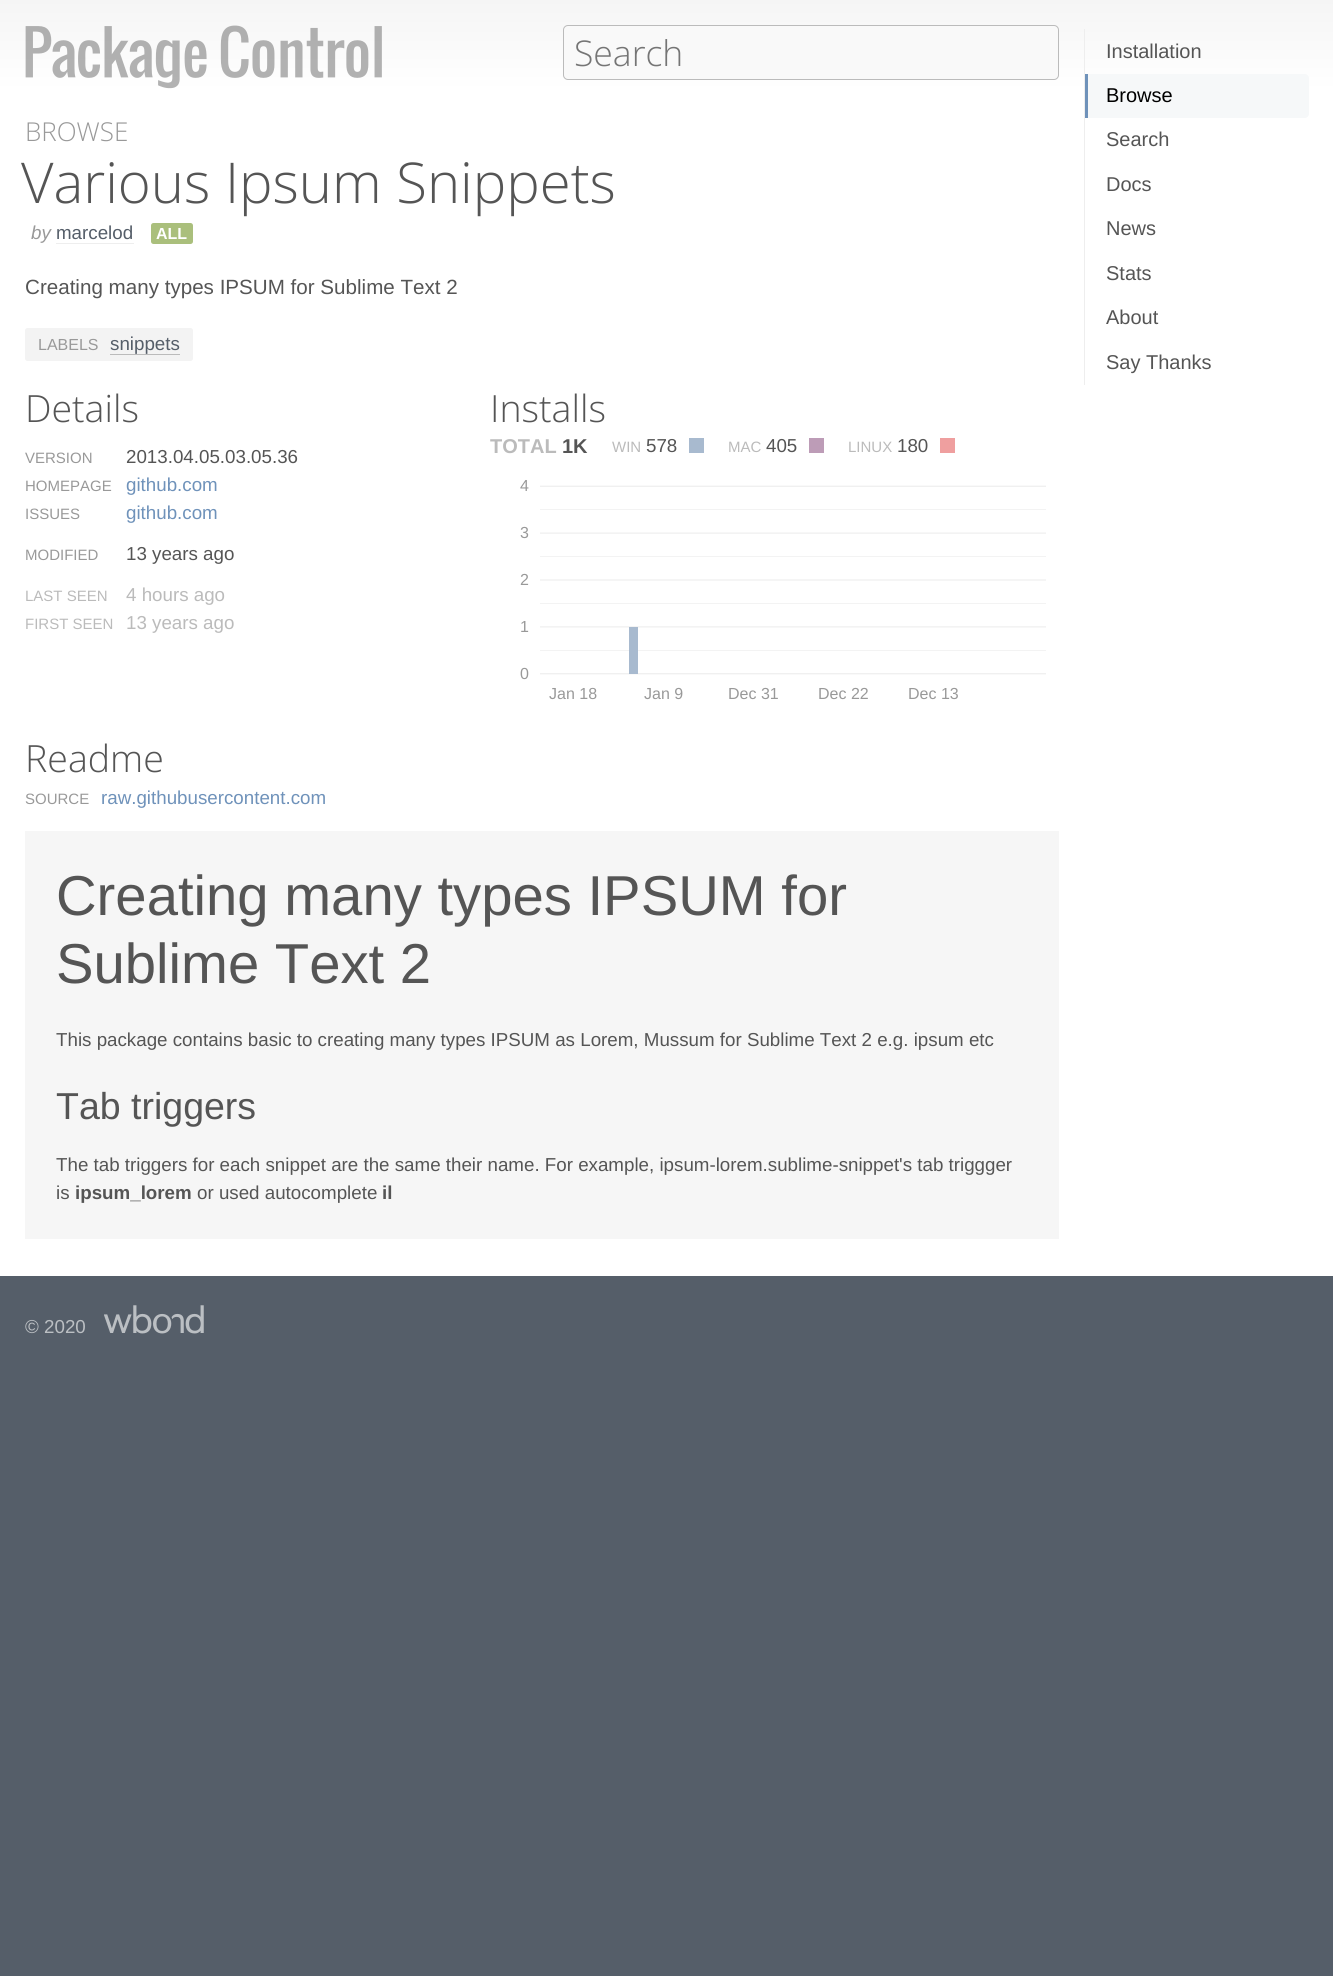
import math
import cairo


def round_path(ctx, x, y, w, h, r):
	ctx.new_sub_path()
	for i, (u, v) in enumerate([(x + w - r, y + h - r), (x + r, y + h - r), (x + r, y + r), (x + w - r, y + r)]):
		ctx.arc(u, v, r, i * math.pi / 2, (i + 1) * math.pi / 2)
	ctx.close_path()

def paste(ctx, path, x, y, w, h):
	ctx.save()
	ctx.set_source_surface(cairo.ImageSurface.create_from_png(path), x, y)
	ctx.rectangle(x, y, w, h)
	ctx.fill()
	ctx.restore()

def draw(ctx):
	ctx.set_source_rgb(0.333, 0.369, 0.412)
	ctx.paint()
	ctx.set_source_rgb(1, 1, 1)
	ctx.rectangle(0, 91, 1333, 1185)
	ctx.fill()
	gradient = cairo.LinearGradient(667, 0, 667, 91)
	gradient.add_color_stop_rgba(0, 0.961, 0.961, 0.961, 1)
	gradient.add_color_stop_rgba(1, 1, 1, 1, 1)
	ctx.set_source(gradient)
	ctx.rectangle(0, 0, 1333, 91)
	ctx.fill()
	paste(ctx, 'media/1.png', 25, 25, 357, 64)
	ctx.set_source_rgb(0.976, 0.976, 0.976)
	round_path(ctx, 563.5, 25.5, 495, 54, 4.5)
	ctx.fill_preserve()
	ctx.set_source_rgb(0.733, 0.733, 0.733)
	ctx.set_line_width(1)
	ctx.stroke()
	ctx.select_font_face('Open Sans Light')
	ctx.set_font_size(35.5)
	ctx.set_source_rgb(0.459, 0.459, 0.459)
	ctx.move_to(574, 66)
	ctx.show_text('Search')
	ctx.set_source_rgb(0.933, 0.933, 0.933)
	ctx.rectangle(1084, 29, 1, 356)
	ctx.fill()
	ctx.select_font_face('Liberation Sans')
	ctx.set_font_size(20)
	ctx.set_source_rgb(0.333, 0.333, 0.333)
	ctx.move_to(1106, 58)
	ctx.show_text('Installation')
	ctx.set_source_rgb(0.961, 0.969, 0.973)
	ctx.new_path()
	ctx.move_to(1085, 74)
	ctx.line_to(1305, 74)
	ctx.curve_to(1307, 74, 1309, 76, 1309, 78)
	ctx.line_to(1309, 114)
	ctx.curve_to(1309, 116, 1307, 118, 1305, 118)
	ctx.line_to(1085, 118)
	ctx.close_path()
	ctx.fill()
	ctx.set_source_rgb(0.435, 0.573, 0.729)
	ctx.rectangle(1085, 74, 3, 44)
	ctx.fill()
	ctx.set_source_rgb(0, 0, 0)
	ctx.move_to(1106, 102)
	ctx.show_text('Browse')
	ctx.set_source_rgb(0.333, 0.333, 0.333)
	for x, y, s in [
		(1106, 146, 'Search'),
		(1106, 191, 'Docs'),
		(1106, 235, 'News'),
		(1106, 280, 'Stats'),
		(1106, 324, 'About'),
		(1106, 369, 'Say Thanks'),
	]:
		ctx.move_to(x, y)
		ctx.show_text(s)
	ctx.select_font_face('Open Sans Light')
	ctx.set_font_size(26)
	ctx.set_source_rgb(0.6, 0.6, 0.6)
	ctx.move_to(25, 141)
	ctx.show_text('BROWSE')
	ctx.set_font_size(56.25)
	ctx.set_source_rgb(0.333, 0.333, 0.333)
	ctx.move_to(21, 203)
	ctx.show_text('Various Ipsum Snippets')
	ctx.select_font_face('Liberation Sans', cairo.FONT_SLANT_ITALIC)
	ctx.set_font_size(18.75)
	ctx.set_source_rgb(0.6, 0.6, 0.6)
	ctx.move_to(31, 239)
	ctx.show_text('by')
	ctx.select_font_face('Liberation Sans')
	ctx.set_source_rgb(0.333, 0.369, 0.412)
	ctx.move_to(56, 239)
	ctx.show_text('marcelod')
	ctx.set_source_rgb(0.933, 0.933, 0.933)
	ctx.rectangle(56, 243, 78, 1)
	ctx.fill()
	ctx.set_source_rgb(0.667, 0.749, 0.486)
	round_path(ctx, 151, 223, 42, 21, 2.5)
	ctx.fill()
	ctx.select_font_face('Liberation Sans', cairo.FONT_SLANT_NORMAL, cairo.FONT_WEIGHT_BOLD)
	ctx.set_font_size(16)
	ctx.set_source_rgb(1, 1, 1)
	ctx.move_to(156, 239)
	ctx.show_text('ALL')
	ctx.select_font_face('Liberation Sans')
	ctx.set_font_size(20.6)
	ctx.set_source_rgb(0.333, 0.333, 0.333)
	ctx.move_to(25, 294)
	ctx.show_text('Creating many types IPSUM for Sublime Text 2')
	ctx.set_source_rgb(0.953, 0.953, 0.953)
	round_path(ctx, 25, 328, 168, 33, 2.5)
	ctx.fill()
	ctx.set_font_size(16)
	ctx.set_source_rgb(0.6, 0.6, 0.6)
	ctx.move_to(38, 350)
	ctx.show_text('LABELS')
	ctx.set_font_size(18.75)
	ctx.set_source_rgb(0.333, 0.369, 0.412)
	ctx.move_to(110, 350)
	ctx.show_text('snippets')
	ctx.set_source_rgb(0.733, 0.733, 0.733)
	ctx.rectangle(110, 354, 70, 1)
	ctx.fill()
	ctx.select_font_face('Open Sans Light')
	ctx.set_font_size(37.5)
	ctx.set_source_rgb(0.333, 0.333, 0.333)
	ctx.move_to(25, 422)
	ctx.show_text('Details')
	ctx.select_font_face('Liberation Sans')
	ctx.set_font_size(15)
	ctx.set_source_rgb(0.6, 0.6, 0.6)
	ctx.move_to(25, 463)
	ctx.show_text('VERSION')
	ctx.set_font_size(18.75)
	ctx.set_source_rgb(0.333, 0.333, 0.333)
	ctx.move_to(126, 463)
	ctx.show_text('2013.04.05.03.05.36')
	ctx.set_font_size(15)
	ctx.set_source_rgb(0.6, 0.6, 0.6)
	ctx.move_to(25, 491)
	ctx.show_text('HOMEPAGE')
	ctx.set_font_size(18.75)
	ctx.set_source_rgb(0.435, 0.573, 0.729)
	ctx.move_to(126, 491)
	ctx.show_text('github.com')
	ctx.set_font_size(15)
	ctx.set_source_rgb(0.6, 0.6, 0.6)
	ctx.move_to(25, 519)
	ctx.show_text('ISSUES')
	ctx.set_font_size(18.75)
	ctx.set_source_rgb(0.435, 0.573, 0.729)
	ctx.move_to(126, 519)
	ctx.show_text('github.com')
	ctx.set_font_size(15)
	ctx.set_source_rgb(0.6, 0.6, 0.6)
	ctx.move_to(25, 560)
	ctx.show_text('MODIFIED')
	ctx.set_font_size(18.75)
	ctx.set_source_rgb(0.333, 0.333, 0.333)
	ctx.move_to(126, 560)
	ctx.show_text('13 years ago')
	ctx.set_font_size(15)
	ctx.set_source_rgb(0.733, 0.733, 0.733)
	ctx.move_to(25, 601)
	ctx.show_text('LAST SEEN')
	ctx.set_font_size(18.75)
	ctx.move_to(126, 601)
	ctx.show_text('4 hours ago')
	ctx.set_font_size(15)
	ctx.move_to(25, 629)
	ctx.show_text('FIRST SEEN')
	ctx.set_font_size(18.75)
	ctx.move_to(126, 629)
	ctx.show_text('13 years ago')
	ctx.select_font_face('Open Sans Light')
	ctx.set_font_size(37.5)
	ctx.set_source_rgb(0.333, 0.333, 0.333)
	ctx.move_to(490, 422)
	ctx.show_text('Installs')
	ctx.select_font_face('Liberation Sans', cairo.FONT_SLANT_NORMAL, cairo.FONT_WEIGHT_BOLD)
	ctx.set_font_size(20)
	ctx.set_source_rgb(0.733, 0.733, 0.733)
	ctx.move_to(490, 453)
	ctx.show_text('TOTAL')
	ctx.set_source_rgb(0.333, 0.333, 0.333)
	ctx.move_to(562, 453)
	ctx.show_text('1K')
	ctx.select_font_face('Liberation Sans')
	ctx.set_font_size(15)
	ctx.set_source_rgb(0.733, 0.733, 0.733)
	ctx.move_to(612, 452)
	ctx.show_text('WIN')
	ctx.set_font_size(18.75)
	ctx.set_source_rgb(0.333, 0.333, 0.333)
	ctx.move_to(646, 452)
	ctx.show_text('578')
	ctx.set_source_rgb(0.659, 0.729, 0.812)
	ctx.rectangle(689, 438, 15, 15)
	ctx.fill()
	ctx.set_font_size(15)
	ctx.set_source_rgb(0.733, 0.733, 0.733)
	ctx.move_to(728, 452)
	ctx.show_text('MAC')
	ctx.set_font_size(18.75)
	ctx.set_source_rgb(0.333, 0.333, 0.333)
	ctx.move_to(766, 452)
	ctx.show_text('405')
	ctx.set_source_rgb(0.741, 0.612, 0.718)
	ctx.rectangle(809, 438, 15, 15)
	ctx.fill()
	ctx.set_font_size(15)
	ctx.set_source_rgb(0.733, 0.733, 0.733)
	ctx.move_to(848, 452)
	ctx.show_text('LINUX')
	ctx.set_font_size(18.75)
	ctx.set_source_rgb(0.333, 0.333, 0.333)
	ctx.move_to(897, 452)
	ctx.show_text('180')
	ctx.set_source_rgb(0.937, 0.624, 0.624)
	ctx.rectangle(940, 438, 15, 15)
	ctx.fill()
	ctx.set_font_size(16)
	ctx.set_source_rgb(0.6, 0.6, 0.6)
	ctx.move_to(520, 491)
	ctx.show_text('4')
	paste(ctx, 'media/2.png', 540, 485, 506, 190)
	for x, y, s in [
		(520, 538, '3'),
		(520, 585, '2'),
		(520, 632, '1'),
		(520, 679, '0'),
		(549, 699, 'Jan 18'),
		(644, 699, 'Jan 9'),
		(728, 699, 'Dec 31'),
		(818, 699, 'Dec 22'),
		(908, 699, 'Dec 13'),
	]:
		ctx.move_to(x, y)
		ctx.show_text(s)
	ctx.select_font_face('Open Sans Light')
	ctx.set_font_size(37.5)
	ctx.set_source_rgb(0.333, 0.333, 0.333)
	ctx.move_to(25, 772)
	ctx.show_text('Readme')
	ctx.select_font_face('Liberation Sans')
	ctx.set_font_size(15)
	ctx.set_source_rgb(0.6, 0.6, 0.6)
	ctx.move_to(25, 804)
	ctx.show_text('SOURCE')
	ctx.set_font_size(18.75)
	ctx.set_source_rgb(0.435, 0.573, 0.729)
	ctx.move_to(101, 804)
	ctx.show_text('raw.githubusercontent.com')
	ctx.set_source_rgb(0.961, 0.961, 0.961)
	ctx.rectangle(25, 831, 1034, 408)
	ctx.fill()
	ctx.set_font_size(56.25)
	ctx.set_source_rgb(0.333, 0.333, 0.333)
	ctx.move_to(56, 915)
	ctx.show_text('Creating many types IPSUM for')
	ctx.move_to(56, 983)
	ctx.show_text('Sublime Text 2')
	ctx.set_font_size(18.75)
	ctx.move_to(56, 1046)
	ctx.show_text('This package contains basic to creating many types IPSUM as Lorem, Mussum for Sublime Text 2 e.g. ipsum etc')
	ctx.set_font_size(37.5)
	ctx.move_to(56, 1119)
	ctx.show_text('Tab triggers')
	ctx.set_font_size(18.75)
	ctx.move_to(56, 1171)
	ctx.show_text('The tab triggers for each snippet are the same their name. For example, ipsum-lorem.sublime-snippet\'s tab triggger')
	ctx.move_to(56, 1199)
	ctx.show_text('is')
	ctx.select_font_face('Liberation Sans', cairo.FONT_SLANT_NORMAL, cairo.FONT_WEIGHT_BOLD)
	ctx.move_to(75, 1199)
	ctx.show_text('ipsum_lorem')
	ctx.select_font_face('Liberation Sans')
	ctx.move_to(197, 1199)
	ctx.show_text('or used autocomplete')
	ctx.select_font_face('Liberation Sans', cairo.FONT_SLANT_NORMAL, cairo.FONT_WEIGHT_BOLD)
	ctx.move_to(382, 1199)
	ctx.show_text('il')
	ctx.select_font_face('Liberation Sans')
	ctx.set_source_rgb(0.733, 0.749, 0.765)
	ctx.move_to(25, 1333)
	ctx.show_text('© 2020')
	paste(ctx, 'media/3.png', 104, 1305, 100, 29)


surface = cairo.ImageSurface(cairo.FORMAT_RGB24, 1333, 1976)
ctx = cairo.Context(surface)
options = cairo.FontOptions()
options.set_hint_metrics(cairo.HINT_METRICS_OFF)
options.set_hint_style(cairo.HINT_STYLE_NONE)
ctx.set_font_options(options)
ctx.set_miter_limit(4)
draw(ctx)
surface.write_to_png('image.png')
